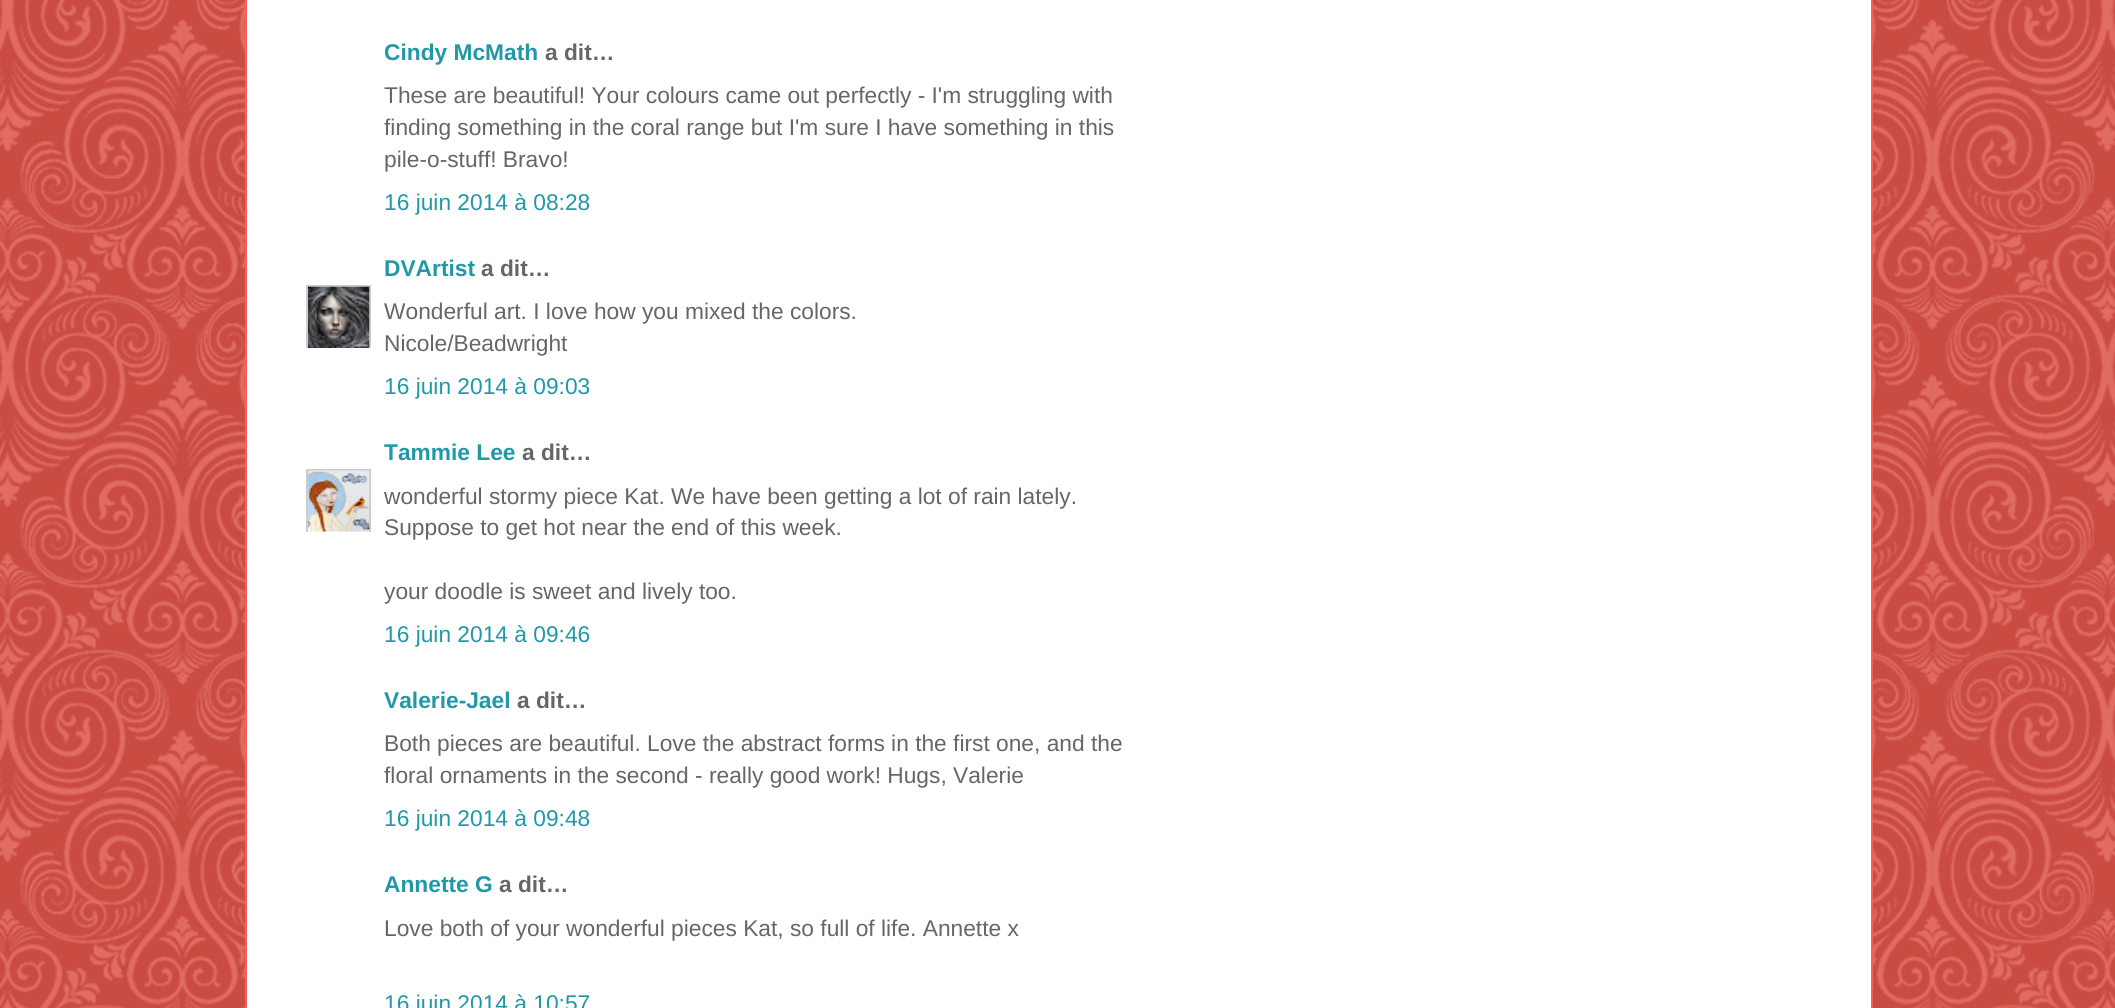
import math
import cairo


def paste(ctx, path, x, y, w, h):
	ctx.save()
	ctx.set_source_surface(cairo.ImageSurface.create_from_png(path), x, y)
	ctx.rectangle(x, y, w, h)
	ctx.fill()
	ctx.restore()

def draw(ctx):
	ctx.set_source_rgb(0.984, 0.369, 0.325)
	ctx.paint()
	paste(ctx, 'media/1.png', 0, 0, 2115, 1008)
	ctx.set_source_rgb(1, 1, 1)
	ctx.rectangle(247, 0, 1624, 1008)
	ctx.fill()
	ctx.set_source_rgb(0.984, 0.369, 0.325)
	ctx.rectangle(1871, 0, 2, 1008)
	ctx.rectangle(245, 0, 2, 1008)
	ctx.fill()
	ctx.select_font_face('Liberation Sans', cairo.FONT_SLANT_NORMAL, cairo.FONT_WEIGHT_BOLD)
	ctx.set_font_size(22.75)
	ctx.set_source_rgb(0.129, 0.596, 0.651)
	ctx.move_to(384, 60)
	ctx.show_text('Cindy McMath')
	ctx.set_source_rgb(0.4, 0.4, 0.4)
	ctx.move_to(545, 60)
	ctx.show_text('a dit…')
	ctx.select_font_face('Liberation Sans')
	for x, y, s in [
		(384, 103, 'These are beautiful! Your colours came out perfectly - I\'m struggling with'),
		(384, 135, 'finding something in the coral range but I\'m sure I have something in this'),
		(384, 167, 'pile-o-stuff! Bravo!'),
	]:
		ctx.move_to(x, y)
		ctx.show_text(s)
	ctx.set_source_rgb(0.129, 0.596, 0.651)
	ctx.move_to(384, 210)
	ctx.show_text('16 juin 2014 à 08:28')
	ctx.select_font_face('Liberation Sans', cairo.FONT_SLANT_NORMAL, cairo.FONT_WEIGHT_BOLD)
	ctx.move_to(384, 276)
	ctx.show_text('DVArtist')
	ctx.set_source_rgb(0.4, 0.4, 0.4)
	ctx.move_to(481, 276)
	ctx.show_text('a dit…')
	ctx.save()
	ctx.rectangle(306, 285, 65, 63)
	ctx.clip()
	ctx.rectangle(307, 286, 63, 63)
	ctx.set_source_rgb(0.8, 0.8, 0.8)
	ctx.stroke()
	ctx.restore()
	paste(ctx, 'media/2.png', 308, 286, 62, 62)
	ctx.select_font_face('Liberation Sans')
	ctx.move_to(384, 319)
	ctx.show_text('Wonderful art. I love how you mixed the colors.')
	ctx.move_to(384, 351)
	ctx.show_text('Nicole/Beadwright')
	ctx.set_source_rgb(0.129, 0.596, 0.651)
	ctx.move_to(384, 394)
	ctx.show_text('16 juin 2014 à 09:03')
	ctx.select_font_face('Liberation Sans', cairo.FONT_SLANT_NORMAL, cairo.FONT_WEIGHT_BOLD)
	ctx.move_to(384, 460)
	ctx.show_text('Tammie Lee')
	ctx.set_source_rgb(0.4, 0.4, 0.4)
	ctx.move_to(522, 460)
	ctx.show_text('a dit…')
	ctx.save()
	ctx.rectangle(306, 469, 65, 63)
	ctx.clip()
	ctx.rectangle(307, 470, 63, 63)
	ctx.set_source_rgb(0.8, 0.8, 0.8)
	ctx.stroke()
	ctx.restore()
	paste(ctx, 'media/3.png', 308, 470, 62, 62)
	ctx.select_font_face('Liberation Sans')
	for x, y, s in [
		(384, 504, 'wonderful stormy piece Kat. We have been getting a lot of rain lately.'),
		(384, 535, 'Suppose to get hot near the end of this week.'),
		(384, 599, 'your doodle is sweet and lively too.'),
	]:
		ctx.move_to(x, y)
		ctx.show_text(s)
	ctx.set_source_rgb(0.129, 0.596, 0.651)
	ctx.move_to(384, 642)
	ctx.show_text('16 juin 2014 à 09:46')
	ctx.select_font_face('Liberation Sans', cairo.FONT_SLANT_NORMAL, cairo.FONT_WEIGHT_BOLD)
	ctx.move_to(384, 708)
	ctx.show_text('Valerie-Jael')
	ctx.set_source_rgb(0.4, 0.4, 0.4)
	ctx.move_to(517, 708)
	ctx.show_text('a dit…')
	ctx.select_font_face('Liberation Sans')
	ctx.move_to(384, 751)
	ctx.show_text('Both pieces are beautiful. Love the abstract forms in the first one, and the')
	ctx.move_to(384, 783)
	ctx.show_text('floral ornaments in the second - really good work! Hugs, Valerie')
	ctx.set_source_rgb(0.129, 0.596, 0.651)
	ctx.move_to(384, 826)
	ctx.show_text('16 juin 2014 à 09:48')
	ctx.select_font_face('Liberation Sans', cairo.FONT_SLANT_NORMAL, cairo.FONT_WEIGHT_BOLD)
	ctx.move_to(384, 892)
	ctx.show_text('Annette G')
	ctx.set_source_rgb(0.4, 0.4, 0.4)
	ctx.move_to(499, 892)
	ctx.show_text('a dit…')
	ctx.select_font_face('Liberation Sans')
	ctx.move_to(384, 936)
	ctx.show_text('Love both of your wonderful pieces Kat, so full of life. Annette x')
	ctx.set_source_rgb(0.129, 0.596, 0.651)
	ctx.move_to(384, 1011)
	ctx.show_text('16 juin 2014 à 10:57')


surface = cairo.ImageSurface(cairo.FORMAT_RGB24, 2115, 1008)
ctx = cairo.Context(surface)
options = cairo.FontOptions()
options.set_hint_metrics(cairo.HINT_METRICS_OFF)
options.set_hint_style(cairo.HINT_STYLE_NONE)
ctx.set_font_options(options)
ctx.set_miter_limit(4)
draw(ctx)
surface.write_to_png('image.png')
